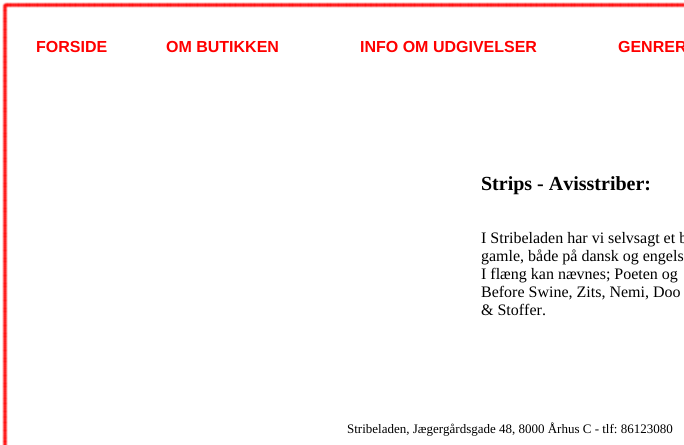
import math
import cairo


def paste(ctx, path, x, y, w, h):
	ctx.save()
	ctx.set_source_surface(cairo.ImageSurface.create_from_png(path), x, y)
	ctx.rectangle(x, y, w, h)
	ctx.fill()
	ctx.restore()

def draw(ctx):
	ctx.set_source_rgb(1, 1, 1)
	ctx.paint()
	paste(ctx, 'media/1.png', 2, 2, 682, 92)
	ctx.select_font_face('Liberation Sans', cairo.FONT_SLANT_NORMAL, cairo.FONT_WEIGHT_BOLD)
	ctx.set_font_size(16)
	ctx.set_source_rgb(1, 0, 0)
	for x, y, s in [
		(36, 52, 'FORSIDE'),
		(166, 52, 'OM BUTIKKEN'),
		(360, 52, 'INFO OM UDGIVELSER'),
		(618, 52, 'GENRER'),
	]:
		ctx.move_to(x, y)
		ctx.show_text(s)
	paste(ctx, 'media/2.png', 2, 94, 6, 304)
	ctx.select_font_face('Liberation Serif', cairo.FONT_SLANT_NORMAL, cairo.FONT_WEIGHT_BOLD)
	ctx.set_font_size(20)
	ctx.set_source_rgb(0, 0, 0)
	ctx.move_to(481, 190)
	ctx.show_text('Strips - Avisstriber:')
	ctx.select_font_face('Liberation Serif')
	ctx.set_font_size(16)
	for x, y, s in [
		(481, 243, 'I Stribeladen har vi selvsagt et b'),
		(481, 261, 'gamle, både på dansk og engels'),
		(481, 279, 'I flæng kan nævnes; Poeten og'),
		(481, 297, 'Before Swine, Zits, Nemi, Doo'),
		(481, 315, '& Stoffer.'),
	]:
		ctx.move_to(x, y)
		ctx.show_text(s)
	paste(ctx, 'media/3.png', 2, 398, 6, 47)
	ctx.set_font_size(13)
	ctx.move_to(347, 433)
	ctx.show_text('Stribeladen, Jægergårdsgade 48, 8000 Århus C - tlf: 86123080')


surface = cairo.ImageSurface(cairo.FORMAT_RGB24, 684, 445)
ctx = cairo.Context(surface)
options = cairo.FontOptions()
options.set_hint_metrics(cairo.HINT_METRICS_OFF)
options.set_hint_style(cairo.HINT_STYLE_NONE)
ctx.set_font_options(options)
ctx.set_miter_limit(4)
draw(ctx)
surface.write_to_png('image.png')
